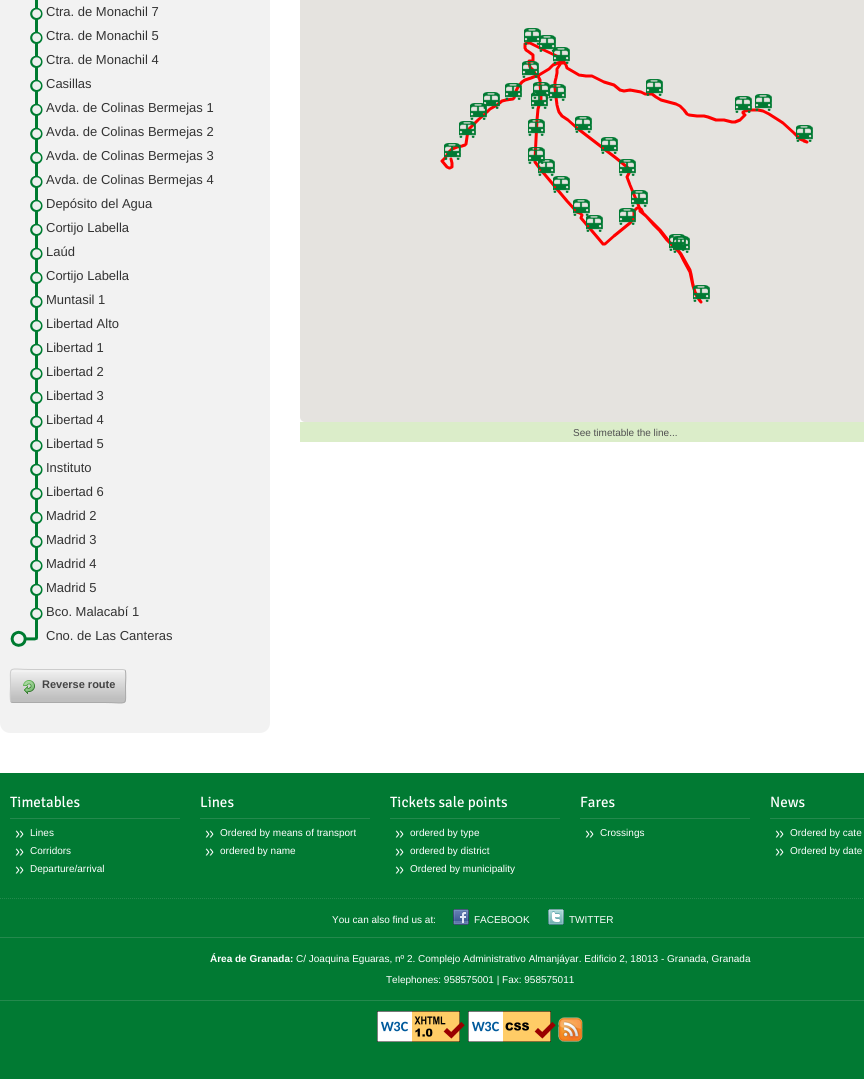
import math
import cairo


def round_path(ctx, x, y, w, h, r):
	ctx.new_sub_path()
	for i, (u, v) in enumerate([(x + w - r, y + h - r), (x + r, y + h - r), (x + r, y + r), (x + w - r, y + r)]):
		ctx.arc(u, v, r, i * math.pi / 2, (i + 1) * math.pi / 2)
	ctx.close_path()

def paste(ctx, path, x, y, w, h):
	ctx.save()
	ctx.set_source_surface(cairo.ImageSurface.create_from_png(path), x, y)
	ctx.rectangle(x, y, w, h)
	ctx.fill()
	ctx.restore()

def draw(ctx):
	ctx.set_source_rgb(1, 1, 1)
	ctx.paint()
	ctx.set_source_rgb(0.949, 0.949, 0.949)
	round_path(ctx, 0, -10, 270, 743, 10)
	ctx.fill()
	ctx.set_source_rgb(0, 0.482, 0.188)
	ctx.rectangle(35, 0, 3, 1)
	ctx.fill()
	paste(ctx, 'media/1.png', 30, 1, 13, 24)
	ctx.select_font_face('Liberation Sans')
	ctx.set_font_size(13)
	ctx.set_source_rgb(0.2, 0.2, 0.2)
	ctx.move_to(46, 16)
	ctx.show_text('Ctra. de Monachil 7')
	paste(ctx, 'media/1.png', 30, 25, 13, 24)
	ctx.move_to(46, 40)
	ctx.show_text('Ctra. de Monachil 5')
	paste(ctx, 'media/1.png', 30, 49, 13, 24)
	ctx.move_to(46, 64)
	ctx.show_text('Ctra. de Monachil 4')
	paste(ctx, 'media/1.png', 30, 73, 13, 24)
	ctx.move_to(46, 88)
	ctx.show_text('Casillas')
	paste(ctx, 'media/1.png', 30, 97, 13, 24)
	ctx.move_to(46, 112)
	ctx.show_text('Avda. de Colinas Bermejas 1')
	paste(ctx, 'media/1.png', 30, 121, 13, 24)
	ctx.move_to(46, 136)
	ctx.show_text('Avda. de Colinas Bermejas 2')
	paste(ctx, 'media/1.png', 30, 145, 13, 24)
	ctx.move_to(46, 160)
	ctx.show_text('Avda. de Colinas Bermejas 3')
	paste(ctx, 'media/1.png', 30, 169, 13, 24)
	ctx.move_to(46, 184)
	ctx.show_text('Avda. de Colinas Bermejas 4')
	paste(ctx, 'media/1.png', 30, 193, 13, 24)
	ctx.move_to(46, 208)
	ctx.show_text('Depósito del Agua')
	paste(ctx, 'media/1.png', 30, 217, 13, 24)
	ctx.move_to(46, 232)
	ctx.show_text('Cortijo Labella')
	paste(ctx, 'media/1.png', 30, 241, 13, 24)
	ctx.move_to(46, 256)
	ctx.show_text('Laúd')
	paste(ctx, 'media/1.png', 30, 265, 13, 24)
	ctx.move_to(46, 280)
	ctx.show_text('Cortijo Labella')
	paste(ctx, 'media/1.png', 30, 289, 13, 24)
	ctx.move_to(46, 304)
	ctx.show_text('Muntasil 1')
	paste(ctx, 'media/1.png', 30, 313, 13, 24)
	ctx.move_to(46, 328)
	ctx.show_text('Libertad Alto')
	paste(ctx, 'media/1.png', 30, 337, 13, 24)
	ctx.move_to(46, 352)
	ctx.show_text('Libertad 1')
	paste(ctx, 'media/1.png', 30, 361, 13, 24)
	ctx.move_to(46, 376)
	ctx.show_text('Libertad 2')
	paste(ctx, 'media/1.png', 30, 385, 13, 24)
	ctx.move_to(46, 400)
	ctx.show_text('Libertad 3')
	paste(ctx, 'media/1.png', 30, 409, 13, 24)
	ctx.move_to(46, 424)
	ctx.show_text('Libertad 4')
	paste(ctx, 'media/1.png', 30, 433, 13, 24)
	ctx.move_to(46, 448)
	ctx.show_text('Libertad 5')
	paste(ctx, 'media/1.png', 30, 457, 13, 24)
	ctx.move_to(46, 472)
	ctx.show_text('Instituto')
	paste(ctx, 'media/1.png', 30, 481, 13, 24)
	ctx.move_to(46, 496)
	ctx.show_text('Libertad 6')
	paste(ctx, 'media/1.png', 30, 505, 13, 24)
	ctx.move_to(46, 520)
	ctx.show_text('Madrid 2')
	paste(ctx, 'media/1.png', 30, 529, 13, 24)
	ctx.move_to(46, 544)
	ctx.show_text('Madrid 3')
	paste(ctx, 'media/1.png', 30, 553, 13, 24)
	ctx.move_to(46, 568)
	ctx.show_text('Madrid 4')
	paste(ctx, 'media/1.png', 30, 577, 13, 24)
	ctx.move_to(46, 592)
	ctx.show_text('Madrid 5')
	paste(ctx, 'media/1.png', 30, 601, 13, 24)
	ctx.move_to(46, 616)
	ctx.show_text('Bco. Malacabí 1')
	paste(ctx, 'media/2.png', 10, 625, 28, 22)
	ctx.move_to(46, 640)
	ctx.show_text('Cno. de Las Canteras')
	paste(ctx, 'media/3.png', 10, 672, 116, 31)
	ctx.new_path()
	ctx.move_to(125, 670)
	ctx.curve_to(126.5, 672, 125.5, 683.5, 125.5, 686)
	ctx.curve_to(125.5, 707.5, 129, 702.5, 104.5, 702.5)
	ctx.line_to(13, 702.5)
	ctx.line_to(11, 702)
	ctx.set_source_rgb(0.667, 0.667, 0.667)
	ctx.set_line_width(1)
	ctx.stroke()
	ctx.new_path()
	ctx.move_to(11, 702)
	ctx.curve_to(9.5, 700, 10.5, 688.5, 10.5, 686)
	ctx.curve_to(10.5, 664.5, 7, 669.5, 31.5, 669.5)
	ctx.line_to(123, 669.5)
	ctx.line_to(125, 670)
	ctx.set_source_rgb(0.8, 0.8, 0.8)
	ctx.stroke()
	paste(ctx, 'media/4.png', 23, 680, 12, 14)
	ctx.select_font_face('Liberation Sans', cairo.FONT_SLANT_NORMAL, cairo.FONT_WEIGHT_BOLD)
	ctx.set_font_size(11)
	ctx.set_source_rgb(0.267, 0.267, 0.267)
	ctx.move_to(42, 688)
	ctx.show_text('Reverse route')
	ctx.set_source_rgb(0.898, 0.89, 0.875)
	round_path(ctx, 300, -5, 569, 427, 5)
	ctx.fill()
	paste(ctx, 'media/36.png', 524, 41, 256, 176)
	paste(ctx, 'media/5.png', 524, 28, 17, 17)
	paste(ctx, 'media/6.png', 539, 35, 17, 17)
	paste(ctx, 'media/7.png', 553, 47, 17, 17)
	paste(ctx, 'media/35.png', 440, 43, 84, 127)
	paste(ctx, 'media/8.png', 522, 61, 17, 17)
	paste(ctx, 'media/9.png', 483, 92, 17, 17)
	paste(ctx, 'media/10.png', 505, 83, 17, 17)
	paste(ctx, 'media/11.png', 533, 82, 17, 17)
	paste(ctx, 'media/12.png', 549, 84, 17, 17)
	paste(ctx, 'media/13.png', 646, 79, 17, 17)
	paste(ctx, 'media/14.png', 470, 103, 17, 17)
	paste(ctx, 'media/15.png', 531, 92, 17, 17)
	paste(ctx, 'media/16.png', 735, 96, 17, 17)
	paste(ctx, 'media/17.png', 755, 94, 17, 17)
	paste(ctx, 'media/18.png', 459, 121, 17, 17)
	paste(ctx, 'media/19.png', 528, 119, 17, 17)
	paste(ctx, 'media/20.png', 575, 116, 17, 17)
	paste(ctx, 'media/37.png', 780, 119, 29, 25)
	paste(ctx, 'media/21.png', 796, 125, 17, 17)
	paste(ctx, 'media/22.png', 444, 143, 17, 17)
	paste(ctx, 'media/23.png', 528, 147, 17, 17)
	paste(ctx, 'media/24.png', 601, 137, 17, 17)
	paste(ctx, 'media/25.png', 538, 159, 17, 17)
	paste(ctx, 'media/26.png', 619, 159, 17, 17)
	paste(ctx, 'media/27.png', 553, 176, 17, 17)
	paste(ctx, 'media/28.png', 573, 199, 17, 17)
	paste(ctx, 'media/38.png', 579, 217, 124, 87)
	paste(ctx, 'media/29.png', 586, 215, 17, 17)
	paste(ctx, 'media/30.png', 619, 208, 17, 17)
	paste(ctx, 'media/31.png', 631, 190, 17, 17)
	paste(ctx, 'media/32.png', 669, 234, 17, 17)
	paste(ctx, 'media/33.png', 673, 236, 17, 17)
	paste(ctx, 'media/34.png', 693, 285, 17, 17)
	ctx.set_source_rgb(0.859, 0.929, 0.788)
	ctx.rectangle(300, 422, 564, 20)
	ctx.fill()
	ctx.select_font_face('Liberation Sans')
	ctx.set_font_size(10)
	ctx.set_source_rgb(0.314, 0.314, 0.314)
	ctx.move_to(573, 436)
	ctx.show_text('See timetable the line...')
	ctx.set_source_rgb(0.004, 0.478, 0.2)
	ctx.rectangle(0, 773, 864, 306)
	ctx.fill()
	ctx.set_source_rgb(0.141, 0.537, 0.302)
	ctx.rectangle(10, 818, 170, 1)
	ctx.fill()
	ctx.select_font_face('Signika Negative')
	ctx.set_font_size(15)
	ctx.set_source_rgb(1, 1, 1)
	ctx.move_to(10, 807)
	ctx.show_text('Timetables')
	paste(ctx, 'media/39.png', 15, 830, 9, 8)
	ctx.select_font_face('Liberation Sans')
	ctx.set_font_size(10)
	ctx.move_to(30, 836)
	ctx.show_text('Lines')
	paste(ctx, 'media/39.png', 15, 848, 9, 8)
	ctx.move_to(30, 854)
	ctx.show_text('Corridors')
	paste(ctx, 'media/39.png', 15, 866, 9, 8)
	ctx.move_to(30, 872)
	ctx.show_text('Departure/arrival')
	ctx.set_source_rgb(0.141, 0.537, 0.302)
	ctx.rectangle(200, 818, 170, 1)
	ctx.fill()
	ctx.select_font_face('Signika Negative')
	ctx.set_font_size(15)
	ctx.set_source_rgb(1, 1, 1)
	ctx.move_to(200, 807)
	ctx.show_text('Lines')
	paste(ctx, 'media/39.png', 205, 830, 9, 8)
	ctx.select_font_face('Liberation Sans')
	ctx.set_font_size(10)
	ctx.move_to(220, 836)
	ctx.show_text('Ordered by means of transport')
	paste(ctx, 'media/39.png', 205, 848, 9, 8)
	ctx.move_to(220, 854)
	ctx.show_text('ordered by name')
	ctx.set_source_rgb(0.141, 0.537, 0.302)
	ctx.rectangle(390, 818, 170, 1)
	ctx.fill()
	ctx.select_font_face('Signika Negative')
	ctx.set_font_size(15)
	ctx.set_source_rgb(1, 1, 1)
	ctx.move_to(390, 807)
	ctx.show_text('Tickets sale points')
	paste(ctx, 'media/39.png', 395, 830, 9, 8)
	ctx.select_font_face('Liberation Sans')
	ctx.set_font_size(10)
	ctx.move_to(410, 836)
	ctx.show_text('ordered by type')
	paste(ctx, 'media/39.png', 395, 848, 9, 8)
	ctx.move_to(410, 854)
	ctx.show_text('ordered by district')
	paste(ctx, 'media/39.png', 395, 866, 9, 8)
	ctx.move_to(410, 872)
	ctx.show_text('Ordered by municipality')
	ctx.set_source_rgb(0.141, 0.537, 0.302)
	ctx.rectangle(580, 818, 170, 1)
	ctx.fill()
	ctx.select_font_face('Signika Negative')
	ctx.set_font_size(15)
	ctx.set_source_rgb(1, 1, 1)
	ctx.move_to(580, 807)
	ctx.show_text('Fares')
	paste(ctx, 'media/39.png', 585, 830, 9, 8)
	ctx.select_font_face('Liberation Sans')
	ctx.set_font_size(10)
	ctx.move_to(600, 836)
	ctx.show_text('Crossings')
	ctx.set_source_rgb(0.141, 0.537, 0.302)
	ctx.rectangle(770, 818, 94, 1)
	ctx.fill()
	ctx.select_font_face('Signika Negative')
	ctx.set_font_size(15)
	ctx.set_source_rgb(1, 1, 1)
	ctx.move_to(770, 807)
	ctx.show_text('News')
	paste(ctx, 'media/39.png', 775, 830, 9, 8)
	ctx.select_font_face('Liberation Sans')
	ctx.set_font_size(10)
	ctx.move_to(790, 836)
	ctx.show_text('Ordered by cate')
	paste(ctx, 'media/39.png', 775, 848, 9, 8)
	ctx.move_to(790, 854)
	ctx.show_text('Ordered by date')
	ctx.new_path()
	ctx.move_to(0, 898.5)
	ctx.line_to(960, 898.5)
	ctx.set_source_rgb(0.141, 0.537, 0.302)
	ctx.set_dash([1, 1])
	ctx.stroke()
	ctx.set_source_rgb(1, 1, 1)
	ctx.move_to(332, 923)
	ctx.show_text('You can also find us at:')
	paste(ctx, 'media/40.png', 453, 909, 16, 16)
	ctx.move_to(474, 923)
	ctx.show_text('FACEBOOK')
	paste(ctx, 'media/41.png', 548, 909, 16, 16)
	ctx.move_to(569, 923)
	ctx.show_text('TWITTER')
	ctx.set_source_rgb(0.141, 0.537, 0.302)
	ctx.rectangle(0, 937, 864, 1)
	ctx.fill()
	ctx.rectangle(0, 1000, 864, 1)
	ctx.fill()
	ctx.select_font_face('Liberation Sans', cairo.FONT_SLANT_NORMAL, cairo.FONT_WEIGHT_BOLD)
	ctx.set_source_rgb(1, 1, 1)
	ctx.move_to(210, 962)
	ctx.show_text('Área de Granada:')
	ctx.select_font_face('Liberation Sans')
	ctx.move_to(296, 962)
	ctx.show_text('C/ Joaquina Eguaras, nº 2. Complejo Administrativo Almanjáyar. Edificio 2, 18013 - Granada, Granada')
	ctx.move_to(386, 983)
	ctx.show_text('Telephones: 958575001 | Fax: 958575011')
	paste(ctx, 'media/42.png', 377, 1011, 88, 31)
	paste(ctx, 'media/43.png', 468, 1011, 88, 31)
	paste(ctx, 'media/44.png', 558, 1017, 25, 25)


surface = cairo.ImageSurface(cairo.FORMAT_RGB24, 864, 1079)
ctx = cairo.Context(surface)
options = cairo.FontOptions()
options.set_hint_metrics(cairo.HINT_METRICS_OFF)
options.set_hint_style(cairo.HINT_STYLE_NONE)
ctx.set_font_options(options)
ctx.set_miter_limit(4)
draw(ctx)
surface.write_to_png('image.png')
